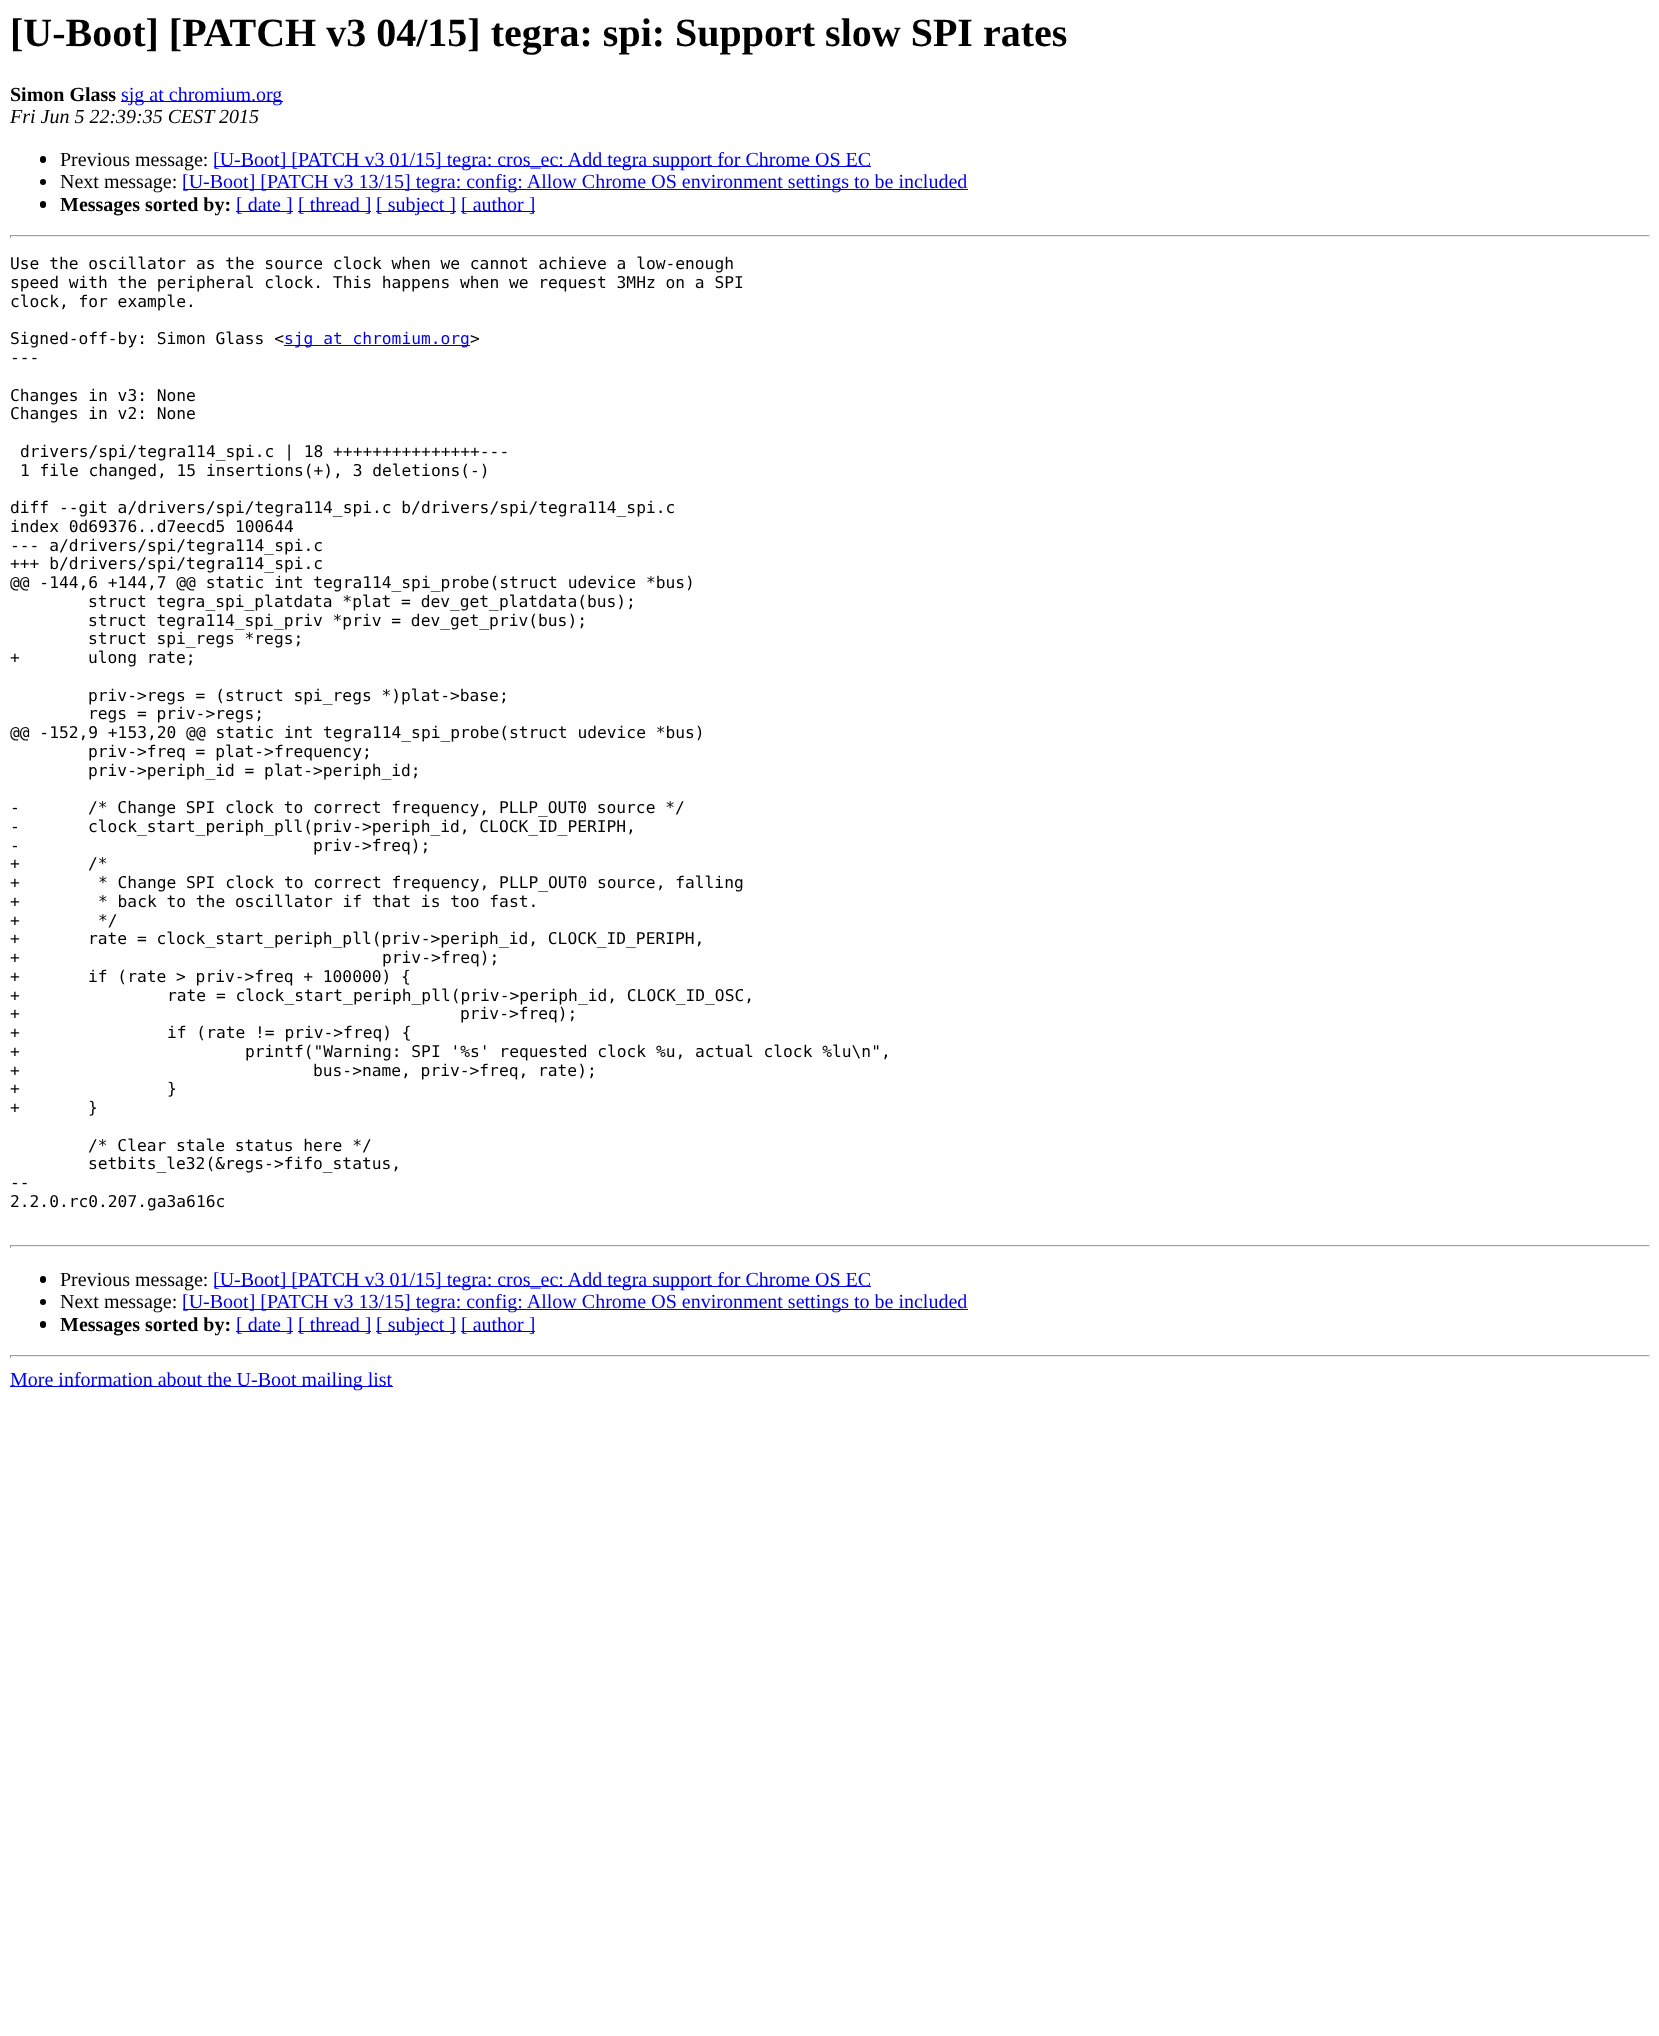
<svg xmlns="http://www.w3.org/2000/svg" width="1659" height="2036">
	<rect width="100%" height="100%" fill="#FFFFFF" />
	<text x="10" y="46" font-family="Liberation Serif" font-size="40" font-weight="700" fill="#000000">[U-Boot] [PATCH v3 04/15] tegra: spi: Support slow SPI rates</text>
	<text x="10" y="101" font-family="Liberation Serif" font-size="20" font-weight="700" fill="#000000">Simon Glass</text>
	<rect x="121" y="101" width="162" height="1" fill="#0000EE" />
	<text x="121" y="101" font-family="Liberation Serif" font-size="20" fill="#0000EE">sjg at chromium.org</text>
	<text x="10" y="123" font-family="Liberation Serif" font-size="20" font-style="italic" fill="#000000">Fri Jun 5 22:39:35 CEST 2015</text>
	<rect x="40" y="156" width="6" height="7" rx="3" fill="#000000" />
	<text x="60" y="166" font-family="Liberation Serif" font-size="20" fill="#000000">Previous message:</text>
	<rect x="214" y="166" width="657" height="1" fill="#0000EE" />
	<text x="213" y="166" font-family="Liberation Serif" font-size="20" fill="#0000EE">[U-Boot] [PATCH v3 01/15] tegra: cros_ec: Add tegra support for Chrome OS EC</text>
	<circle cx="43" cy="182" r="3" fill="#000000" />
	<text x="60" y="188" font-family="Liberation Serif" font-size="20" fill="#000000">Next message:</text>
	<rect x="183" y="189" width="785" height="1" fill="#0000EE" />
	<text x="182" y="188" font-family="Liberation Serif" font-size="20" fill="#0000EE">[U-Boot] [PATCH v3 13/15] tegra: config: Allow Chrome OS environment settings to be included</text>
	<rect x="40" y="201" width="6" height="7" rx="3" fill="#000000" />
	<text x="60" y="211" font-family="Liberation Serif" font-size="20" font-weight="700" fill="#000000">Messages sorted by:</text>
	<rect x="236" y="211" width="57" height="1" fill="#0000EE" />
	<text x="236" y="211" font-family="Liberation Serif" font-size="20" fill="#0000EE">[ date ]</text>
	<rect x="298" y="211" width="73" height="1" fill="#0000EE" />
	<text x="298" y="211" font-family="Liberation Serif" font-size="20" fill="#0000EE">[ thread ]</text>
	<rect x="376" y="211" width="80" height="1" fill="#0000EE" />
	<text x="376" y="211" font-family="Liberation Serif" font-size="20" fill="#0000EE">[ subject ]</text>
	<rect x="461" y="211" width="74" height="1" fill="#0000EE" />
	<text x="461" y="211" font-family="Liberation Serif" font-size="20" fill="#0000EE">[ author ]</text>
	<rect x="10" y="235" width="1640" height="1" fill="#9F9F9F" />
	<rect x="1649" y="235" width="1" height="3" fill="#EEEEEE" />
	<rect x="10" y="236" width="1640" height="1" fill="#EEEEEE" />
	<rect x="10" y="235" width="1" height="3" fill="#9F9F9F" />
	<g font-family="DejaVu Sans Mono" font-size="16.25" fill="#000000">
		<text x="10" y="269">Use the oscillator as the source clock when we cannot achieve a low-enough</text>
		<text x="10" y="288">speed with the peripheral clock. This happens when we request 3MHz on a SPI</text>
		<text x="10" y="307">clock, for example.</text>
		<text x="10" y="344">Signed-off-by: Simon Glass &lt;</text>
	</g>
	<rect x="284" y="345" width="186" height="1" fill="#0000EE" />
	<text x="284" y="344" font-family="DejaVu Sans Mono" font-size="16.25" fill="#0000EE">sjg at chromium.org</text>
	<g font-family="DejaVu Sans Mono" font-size="16.25" fill="#000000">
		<text x="470" y="344">&gt;</text>
		<text x="10" y="363">---</text>
		<text x="10" y="401">Changes in v3: None</text>
		<text x="10" y="419">Changes in v2: None</text>
		<text x="20" y="457">drivers/spi/tegra114_spi.c | 18 +++++++++++++++---</text>
		<text x="20" y="476">1 file changed, 15 insertions(+), 3 deletions(-)</text>
		<text x="10" y="513">diff --git a/drivers/spi/tegra114_spi.c b/drivers/spi/tegra114_spi.c</text>
		<text x="10" y="532">index 0d69376..d7eecd5 100644</text>
		<text x="10" y="551">--- a/drivers/spi/tegra114_spi.c</text>
		<text x="10" y="569">+++ b/drivers/spi/tegra114_spi.c</text>
		<text x="10" y="588">@@ -144,6 +144,7 @@ static int tegra114_spi_probe(struct udevice *bus)</text>
		<text x="88" y="607">struct tegra_spi_platdata *plat = dev_get_platdata(bus);</text>
		<text x="88" y="626">struct tegra114_spi_priv *priv = dev_get_priv(bus);</text>
		<text x="88" y="644">struct spi_regs *regs;</text>
		<text x="10" y="663">+</text>
		<text x="88" y="663">ulong rate;</text>
		<text x="88" y="701">priv-&gt;regs = (struct spi_regs *)plat-&gt;base;</text>
		<text x="88" y="719">regs = priv-&gt;regs;</text>
		<text x="10" y="738">@@ -152,9 +153,20 @@ static int tegra114_spi_probe(struct udevice *bus)</text>
		<text x="88" y="757">priv-&gt;freq = plat-&gt;frequency;</text>
		<text x="88" y="776">priv-&gt;periph_id = plat-&gt;periph_id;</text>
		<text x="10" y="813">-</text>
		<text x="88" y="813">/* Change SPI clock to correct frequency, PLLP_OUT0 source */</text>
		<text x="10" y="832">-</text>
		<text x="88" y="832">clock_start_periph_pll(priv-&gt;periph_id, CLOCK_ID_PERIPH,</text>
		<text x="10" y="851">-</text>
		<text x="313" y="851">priv-&gt;freq);</text>
		<text x="10" y="869">+</text>
		<text x="88" y="869">/*</text>
		<text x="10" y="888">+</text>
		<text x="98" y="888">* Change SPI clock to correct frequency, PLLP_OUT0 source, falling</text>
		<text x="10" y="907">+</text>
		<text x="98" y="907">* back to the oscillator if that is too fast.</text>
		<text x="10" y="926">+</text>
		<text x="98" y="926">*/</text>
		<text x="10" y="944">+</text>
		<text x="88" y="944">rate = clock_start_periph_pll(priv-&gt;periph_id, CLOCK_ID_PERIPH,</text>
		<text x="10" y="963">+</text>
		<text x="382" y="963">priv-&gt;freq);</text>
		<text x="10" y="982">+</text>
		<text x="88" y="982">if (rate &gt; priv-&gt;freq + 100000) {</text>
		<text x="10" y="1001">+</text>
		<text x="167" y="1001">rate = clock_start_periph_pll(priv-&gt;periph_id, CLOCK_ID_OSC,</text>
		<text x="10" y="1019">+</text>
		<text x="460" y="1019">priv-&gt;freq);</text>
		<text x="10" y="1038">+</text>
		<text x="167" y="1038">if (rate != priv-&gt;freq) {</text>
		<text x="10" y="1057">+</text>
		<text x="245" y="1057">printf("Warning: SPI '%s' requested clock %u, actual clock %lu\n",</text>
		<text x="10" y="1076">+</text>
		<text x="313" y="1076">bus-&gt;name, priv-&gt;freq, rate);</text>
		<text x="10" y="1094">+</text>
		<text x="167" y="1094">}</text>
		<text x="10" y="1113">+</text>
		<text x="88" y="1113">}</text>
		<text x="88" y="1151">/* Clear stale status here */</text>
		<text x="88" y="1169">setbits_le32(&amp;regs-&gt;fifo_status,</text>
		<text x="10" y="1188">--</text>
		<text x="10" y="1207">2.2.0.rc0.207.ga3a616c</text>
	</g>
	<rect x="10" y="1245" width="1640" height="1" fill="#9F9F9F" />
	<rect x="1649" y="1245" width="1" height="3" fill="#EEEEEE" />
	<rect x="10" y="1246" width="1640" height="1" fill="#EEEEEE" />
	<rect x="10" y="1245" width="1" height="3" fill="#9F9F9F" />
	<rect x="40" y="1276" width="6" height="7" rx="3" fill="#000000" />
	<text x="60" y="1286" font-family="Liberation Serif" font-size="20" fill="#000000">Previous message:</text>
	<rect x="214" y="1286" width="657" height="1" fill="#0000EE" />
	<text x="213" y="1286" font-family="Liberation Serif" font-size="20" fill="#0000EE">[U-Boot] [PATCH v3 01/15] tegra: cros_ec: Add tegra support for Chrome OS EC</text>
	<circle cx="43" cy="1302" r="3" fill="#000000" />
	<text x="60" y="1308" font-family="Liberation Serif" font-size="20" fill="#000000">Next message:</text>
	<rect x="183" y="1309" width="785" height="1" fill="#0000EE" />
	<text x="182" y="1308" font-family="Liberation Serif" font-size="20" fill="#0000EE">[U-Boot] [PATCH v3 13/15] tegra: config: Allow Chrome OS environment settings to be included</text>
	<rect x="40" y="1321" width="6" height="7" rx="3" fill="#000000" />
	<text x="60" y="1331" font-family="Liberation Serif" font-size="20" font-weight="700" fill="#000000">Messages sorted by:</text>
	<rect x="236" y="1331" width="57" height="1" fill="#0000EE" />
	<text x="236" y="1331" font-family="Liberation Serif" font-size="20" fill="#0000EE">[ date ]</text>
	<rect x="298" y="1331" width="73" height="1" fill="#0000EE" />
	<text x="298" y="1331" font-family="Liberation Serif" font-size="20" fill="#0000EE">[ thread ]</text>
	<rect x="376" y="1331" width="80" height="1" fill="#0000EE" />
	<text x="376" y="1331" font-family="Liberation Serif" font-size="20" fill="#0000EE">[ subject ]</text>
	<rect x="461" y="1331" width="74" height="1" fill="#0000EE" />
	<text x="461" y="1331" font-family="Liberation Serif" font-size="20" fill="#0000EE">[ author ]</text>
	<rect x="10" y="1355" width="1640" height="1" fill="#9F9F9F" />
	<rect x="1649" y="1355" width="1" height="3" fill="#EEEEEE" />
	<rect x="10" y="1356" width="1640" height="1" fill="#EEEEEE" />
	<rect x="10" y="1355" width="1" height="3" fill="#9F9F9F" />
	<rect x="10" y="1386" width="383" height="1" fill="#0000EE" />
	<text x="10" y="1386" font-family="Liberation Serif" font-size="20" fill="#0000EE">More information about the U-Boot mailing list</text>
</svg>
